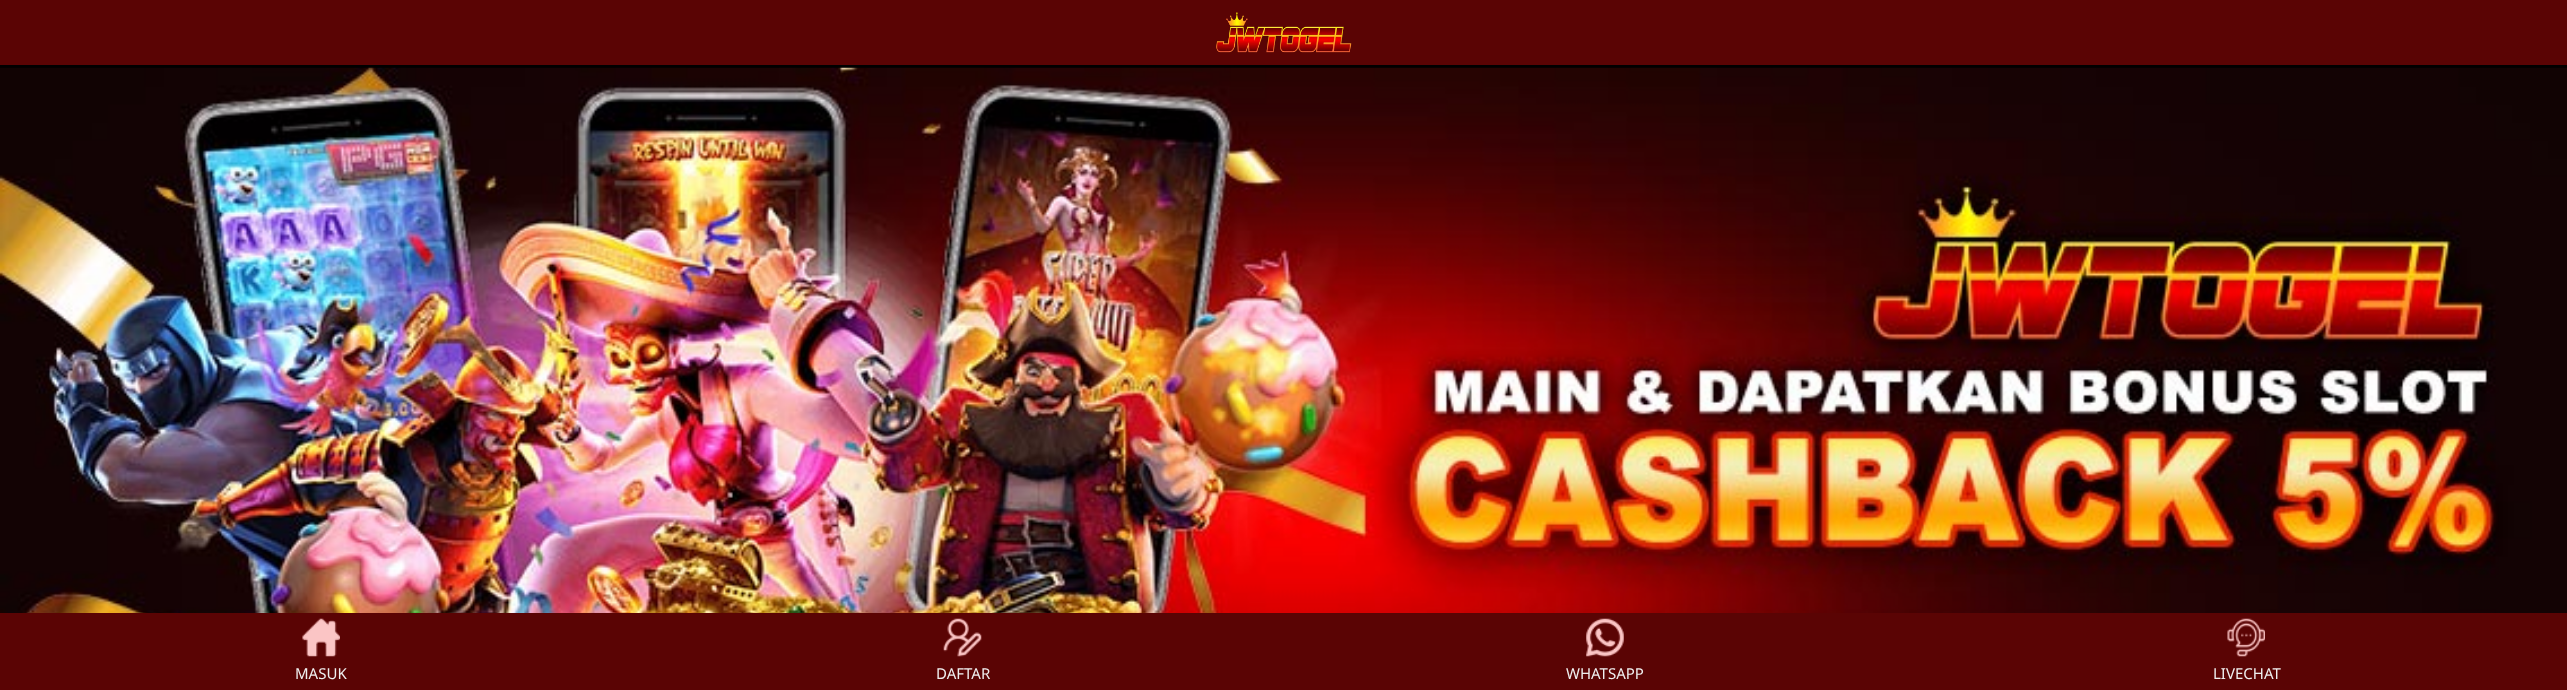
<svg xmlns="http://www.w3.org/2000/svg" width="2567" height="690">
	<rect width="100%" height="100%" fill="#000000" />
	<rect x="0" y="0" width="2567" height="65" fill="#5A0404" />
	<image x="1216" y="12" width="136" height="41" href="assets/img1.png" />
	<image x="0" y="67" width="2567" height="546" href="assets/img2.png" />
	<rect x="0" y="613" width="2567" height="77" fill="#5A0404" />
	<image x="302" y="618" width="38" height="39" href="assets/img3.png" />
	<text x="295" y="679" font-family="Noto Sans" font-size="15" fill="#EFEFEF">MASUK</text>
	<image x="943" y="618" width="39" height="39" href="assets/img4.png" />
	<text x="936" y="679" font-family="Noto Sans" font-size="15" fill="#EFEFEF">DAFTAR</text>
	<image x="1586" y="618" width="38" height="39" href="assets/img5.png" />
	<text x="1566" y="679" font-family="Noto Sans" font-size="15" fill="#EFEFEF">WHATSAPP</text>
	<image x="2227" y="618" width="38" height="39" href="assets/img6.png" />
	<text x="2213" y="679" font-family="Noto Sans" font-size="15" fill="#EFEFEF">LIVECHAT</text>
</svg>
